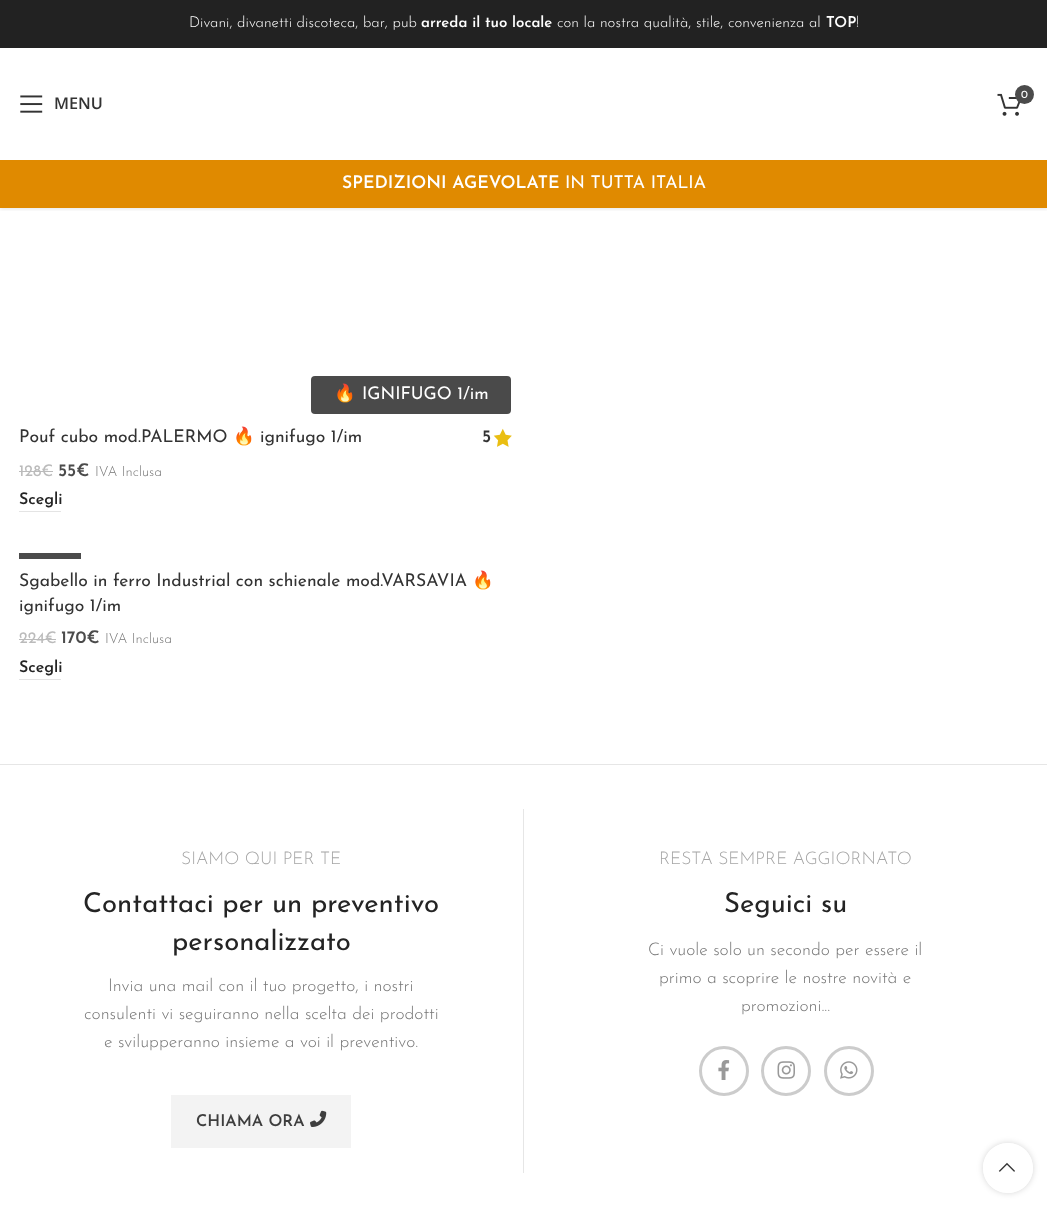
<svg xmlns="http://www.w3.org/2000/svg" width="1047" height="1207">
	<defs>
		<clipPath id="clip1"><rect x="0" y="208" width="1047" height="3" /></clipPath>
		<clipPath id="clip2"><path d="M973 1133H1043V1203H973ZM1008 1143C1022 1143 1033 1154 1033 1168C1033 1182 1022 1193 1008 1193C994 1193 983 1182 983 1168C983 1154 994 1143 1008 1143Z" clip-rule="evenodd" /></clipPath>
	</defs>
	<rect width="100%" height="100%" fill="#FFFFFF" />
	<g clip-path="url(#clip1)">
		<rect x="0" y="1" width="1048" height="208" fill="#000000" fill-opacity="0.1" filter="blur(2px)" />
	</g>
	<rect x="0" y="0" width="1047" height="48" fill="#222222" />
	<text x="189" y="27" font-family="Josefin Sans" font-size="15" font-weight="300" fill="#FFFFFF">Divani, divanetti discoteca, bar, pub</text>
	<text x="421" y="27" font-family="Josefin Sans" font-size="15" font-weight="600" fill="#FFFFFF">arreda il tuo locale</text>
	<text x="557" y="27" font-family="Josefin Sans" font-size="15" font-weight="300" fill="#FFFFFF">con la nostra qualità, stile, convenienza al</text>
	<text x="826" y="27" font-family="Josefin Sans" font-size="15" font-weight="600" fill="#FFFFFF">TOP</text>
	<text x="856" y="27" font-family="Josefin Sans" font-size="15" font-weight="300" fill="#FFFFFF">!</text>
	<image x="997" y="93" width="24" height="23" href="assets/img1.png" />
	<circle cx="1024.5" cy="94.5" r="9.5" fill="#4B4B4B" />
	<text x="1021" y="98" font-family="Josefin Sans" font-size="11" fill="#FFFFFF">0</text>
	<image x="20" y="95" width="23" height="18" href="assets/img2.png" />
	<text x="54" y="109" font-family="Open Sans" font-size="16.25" font-weight="600" fill="#333333">MENU</text>
	<rect x="0" y="160" width="1047" height="48" fill="#E08A00" />
	<text x="342" y="188" font-family="Josefin Sans" font-size="17.5" font-weight="600" fill="#FFFFFF">SPEDIZIONI AGEVOLATE</text>
	<text x="565" y="188" font-family="Josefin Sans" font-size="17.5" fill="#FFFFFF">IN TUTTA ITALIA</text>
	<rect x="311" y="376" width="200" height="38" rx="4" fill="#4A4A4A" />
	<text x="334" y="399" font-family="Noto Color Emoji" font-size="17.5" fill="#FFFFFF">🔥</text>
	<text x="362" y="399" font-family="Josefin Sans" font-size="17.5" fill="#FFFFFF">IGNIFUGO 1/im</text>
	<text x="19" y="442" font-family="Josefin Sans" font-size="17.5" fill="#333333">Pouf cubo mod.PALERMO</text>
	<text x="233" y="442" font-family="Noto Color Emoji" font-size="17.5" fill="#333333">🔥</text>
	<text x="260" y="442" font-family="Josefin Sans" font-size="17.5" fill="#333333">ignifugo 1/im</text>
	<text x="482" y="442" font-family="Josefin Sans" font-size="17.5" font-weight="600" fill="#333333">5</text>
	<image x="493" y="428" width="19" height="19" href="assets/img3.png" />
	<text x="19" y="476" font-family="Josefin Sans" font-size="16" fill="#BBBBBB">128€</text>
	<rect x="19" y="471" width="34" height="1" fill="#BBBBBB" />
	<text x="58" y="476" font-family="Josefin Sans" font-size="17.5" font-weight="600" fill="#4B4B4B">55€</text>
	<text x="95" y="476" font-family="Josefin Sans" font-size="14" font-weight="300" fill="#767676">IVA Inclusa</text>
	<rect x="19" y="511" width="42" height="1" fill="#E4E4E4" />
	<text x="19" y="504" font-family="Josefin Sans" font-size="16" font-weight="600" fill="#242424">Scegli</text>
	<rect x="19" y="553" width="62" height="6" fill="#4B4B4B" />
	<text x="19" y="586" font-family="Josefin Sans" font-size="17.5" fill="#333333">Sgabello in ferro Industrial con schienale mod.VARSAVIA</text>
	<text x="472" y="586" font-family="Noto Color Emoji" font-size="17.5" fill="#333333">🔥</text>
	<text x="19" y="611" font-family="Josefin Sans" font-size="17.5" fill="#333333">ignifugo 1/im</text>
	<text x="19" y="643" font-family="Josefin Sans" font-size="16" fill="#BBBBBB">224€</text>
	<rect x="19" y="639" width="37" height="1" fill="#BBBBBB" />
	<text x="61" y="643" font-family="Josefin Sans" font-size="17.5" font-weight="600" fill="#4B4B4B">170€</text>
	<text x="105" y="643" font-family="Josefin Sans" font-size="14" font-weight="300" fill="#767676">IVA Inclusa</text>
	<rect x="19" y="679" width="42" height="1" fill="#E4E4E4" />
	<text x="19" y="672" font-family="Josefin Sans" font-size="16" font-weight="600" fill="#242424">Scegli</text>
	<rect x="0" y="764" width="1047" height="1" fill="#E6E6E6" />
	<rect x="523" y="809" width="1" height="364" fill="#E6E6E6" />
	<text x="181" y="864" font-family="Josefin Sans" font-size="17.5" font-weight="300" fill="#A5A5A5">SIAMO QUI PER TE</text>
	<g font-family="Josefin Sans" font-size="27.5" fill="#242424">
		<text x="83" y="912">Contattaci per un preventivo</text>
		<text x="172" y="950">personalizzato</text>
	</g>
	<g font-family="Josefin Sans" font-size="17.5" font-weight="300" fill="#767676">
		<text x="108" y="991">Invia una mail con il tuo progetto, i nostri</text>
		<text x="84" y="1019">consulenti vi seguiranno nella scelta dei prodotti</text>
		<text x="104" y="1047">e svilupperanno insieme a voi il preventivo.</text>
	</g>
	<rect x="171" y="1095" width="180" height="53" fill="#F3F3F3" />
	<text x="196" y="1126" font-family="Josefin Sans" font-size="16.25" font-weight="600" fill="#3E3E3E">CHIAMA ORA</text>
	<image x="310" y="1110" width="17" height="17" href="assets/img4.png" />
	<text x="659" y="864" font-family="Josefin Sans" font-size="17.5" font-weight="300" fill="#A5A5A5">RESTA SEMPRE AGGIORNATO</text>
	<text x="724" y="912" font-family="Josefin Sans" font-size="27.5" fill="#242424">Seguici su</text>
	<g font-family="Josefin Sans" font-size="17.5" font-weight="300" fill="#767676">
		<text x="648" y="955">Ci vuole solo un secondo per essere il</text>
		<text x="659" y="983">primo a scoprire le nostre novità e</text>
		<text x="741" y="1011">promozioni...</text>
	</g>
	<circle cx="724" cy="1071" r="23.5" fill="none" stroke="#CCCCCC" stroke-width="3" />
	<image x="718" y="1060" width="12" height="20" href="assets/img5.png" />
	<circle cx="786" cy="1071" r="23.5" fill="none" stroke="#CCCCCC" stroke-width="3" />
	<image x="777" y="1061" width="18" height="18" href="assets/img6.png" />
	<circle cx="849" cy="1071" r="23.5" fill="none" stroke="#CCCCCC" stroke-width="3" />
	<image x="840" y="1061" width="18" height="18" href="assets/img7.png" />
	<g clip-path="url(#clip2)">
		<rect x="983" y="1143" width="50" height="50" rx="25" fill="#000000" fill-opacity="0.17" filter="blur(3px)" />
	</g>
	<circle cx="1008" cy="1168" r="25" fill="#FFFFFF" fill-opacity="0.9" />
	<image x="998" y="1162" width="17" height="10" href="assets/img8.png" />
</svg>
